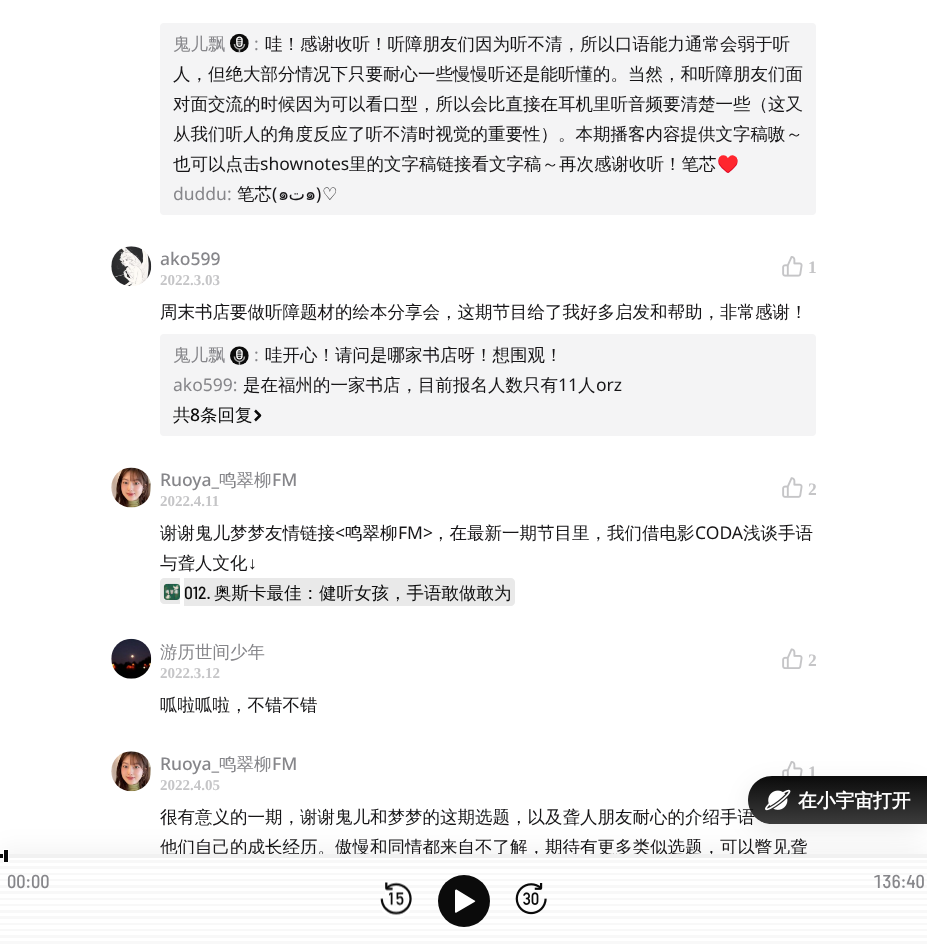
<svg xmlns="http://www.w3.org/2000/svg" width="927" height="947">
	<defs>
		<clipPath id="clip1"><path d="M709 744H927V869H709ZM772 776H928V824H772C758.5 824 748 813.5 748 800C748 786.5 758.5 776 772 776Z" clip-rule="evenodd" /></clipPath>
		<linearGradient id="g1" gradientUnits="userSpaceOnUse" x1="838" y1="776" x2="838" y2="824"><stop offset="0" stop-color="#0B0B0B" /><stop offset="1" stop-color="#0B0B0B" stop-opacity="0.8" /></linearGradient>
	</defs>
	<rect width="100%" height="100%" fill="#FFFFFF" />
	<rect x="160" y="23" width="656" height="192" rx="4" fill="#F4F4F5" />
	<text x="173" y="50" font-family="WenQuanYi Zen Hei" font-size="17.5" font-weight="500" fill="#86868A">鬼儿飘</text>
	<image x="230" y="33" width="19" height="20" href="assets/img1.png" />
	<text x="254" y="50" font-family="Noto Sans" font-size="17.5" fill="#86868A">:</text>
	<g font-family="WenQuanYi Zen Hei" font-size="17.5" font-weight="500" fill="#161517">
		<text x="265" y="50">哇！感谢收听！听障朋友们因为听不清，所以口语能力通常会弱于听</text>
		<text x="173" y="80">人，但绝大部分情况下只要耐心一些慢慢听还是能听懂的。当然，和听障朋友们面</text>
		<text x="173" y="110">对面交流的时候因为可以看口型，所以会比直接在耳机里听音频要清楚一些（这又</text>
		<text x="173" y="140">从我们听人的角度反应了听不清时视觉的重要性）。本期播客内容提供文字稿嗷～</text>
		<text x="173" y="170">也可以点击</text>
	</g>
	<text x="260" y="170" font-family="Noto Sans" font-size="17.5" fill="#161517">shownotes</text>
	<text x="349" y="170" font-family="WenQuanYi Zen Hei" font-size="17.5" font-weight="500" fill="#161517">里的文字稿链接看文字稿～再次感谢收听！笔芯</text>
	<text x="717" y="170" font-family="Noto Color Emoji" font-size="17.5" fill="#161517">♥️</text>
	<text x="173" y="200" font-family="Noto Sans" font-size="17.5" fill="#86868A">duddu:</text>
	<text x="237" y="200" font-family="WenQuanYi Zen Hei" font-size="17.5" font-weight="500" fill="#161517">笔芯</text>
	<text x="272" y="200" font-family="Noto Sans" font-size="17.5" fill="#161517">(</text>
	<text x="278" y="200" font-family="Loma" font-size="17.5" fill="#161517">๑</text>
	<text x="305" y="200" font-family="DejaVu Sans" font-size="17.5" direction="rtl" fill="#161517">ت</text>
	<text x="305" y="200" font-family="Loma" font-size="17.5" fill="#161517">๑</text>
	<text x="316" y="200" font-family="Noto Sans" font-size="17.5" fill="#161517">)</text>
	<text x="322" y="200" font-family="DejaVu Sans" font-size="17.5" fill="#161517">♡</text>
	<image x="111" y="246" width="41" height="41" href="assets/img2.png" />
	<text x="160" y="265" font-family="Noto Sans" font-size="17.5" font-weight="500" fill="#86868A">ako599</text>
	<text x="160" y="285" font-family="Liberation Serif" font-size="15" font-weight="700" fill="#C5C5C7">2022.3.03</text>
	<image x="782" y="256" width="21" height="21" href="assets/img3.png" />
	<text x="808" y="273" font-family="Liberation Serif" font-size="17.5" font-weight="700" fill="#C5C5C7">1</text>
	<text x="160" y="318" font-family="WenQuanYi Zen Hei" font-size="17.5" font-weight="500" fill="#161517">周末书店要做听障题材的绘本分享会，这期节目给了我好多启发和帮助，非常感谢！</text>
	<rect x="160" y="334" width="656" height="102" rx="4" fill="#F4F4F5" />
	<text x="173" y="361" font-family="WenQuanYi Zen Hei" font-size="17.5" font-weight="500" fill="#86868A">鬼儿飘</text>
	<image x="230" y="346" width="19" height="19" href="assets/img4.png" />
	<text x="254" y="361" font-family="Noto Sans" font-size="17.5" fill="#86868A">:</text>
	<text x="265" y="361" font-family="WenQuanYi Zen Hei" font-size="17.5" font-weight="500" fill="#161517">哇开心！请问是哪家书店呀！想围观！</text>
	<text x="173" y="391" font-family="Noto Sans" font-size="17.5" fill="#86868A">ako599:</text>
	<text x="243" y="391" font-family="WenQuanYi Zen Hei" font-size="17.5" font-weight="500" fill="#161517">是在福州的一家书店，目前报名人数只有</text>
	<text x="558" y="391" font-family="Noto Sans" font-size="17.5" fill="#161517">11</text>
	<text x="578" y="391" font-family="WenQuanYi Zen Hei" font-size="17.5" font-weight="500" fill="#161517">人</text>
	<text x="596" y="391" font-family="Noto Sans" font-size="17.5" fill="#161517">orz</text>
	<text x="173" y="421" font-family="WenQuanYi Zen Hei" font-size="17.5" font-weight="500" fill="#0B0B0B">共</text>
	<text x="190" y="421" font-family="Noto Sans" font-size="17.5" font-weight="500" fill="#0B0B0B">8</text>
	<text x="200" y="421" font-family="WenQuanYi Zen Hei" font-size="17.5" font-weight="500" fill="#0B0B0B">条回复</text>
	<path d="M255 410.5L260 415.5L255 420.5" fill="none" stroke="#0B0B0B" stroke-width="2.5" stroke-linejoin="round" />
	<image x="111" y="467" width="40" height="41" href="assets/img5.png" />
	<text x="160" y="486" font-family="Noto Sans" font-size="17.5" font-weight="500" fill="#86868A">Ruoya_</text>
	<text x="219" y="486" font-family="WenQuanYi Zen Hei" font-size="17.5" font-weight="500" fill="#86868A">鸣翠柳</text>
	<text x="272" y="486" font-family="Noto Sans" font-size="17.5" font-weight="500" fill="#86868A">FM</text>
	<text x="160" y="506" font-family="Liberation Serif" font-size="15" font-weight="700" fill="#C5C5C7">2022.4.11</text>
	<image x="782" y="477" width="21" height="21" href="assets/img6.png" />
	<text x="808" y="495" font-family="Liberation Serif" font-size="17.5" font-weight="700" fill="#C5C5C7">2</text>
	<text x="160" y="539" font-family="WenQuanYi Zen Hei" font-size="17.5" font-weight="500" fill="#161517">谢谢鬼儿梦梦友情链接</text>
	<text x="335" y="539" font-family="Noto Sans" font-size="17.5" fill="#161517">&lt;</text>
	<text x="345" y="539" font-family="WenQuanYi Zen Hei" font-size="17.5" font-weight="500" fill="#161517">鸣翠柳</text>
	<text x="398" y="539" font-family="Noto Sans" font-size="17.5" fill="#161517">FM&gt;</text>
	<text x="432" y="539" font-family="WenQuanYi Zen Hei" font-size="17.5" font-weight="500" fill="#161517">，在最新一期节目里，我们借电影</text>
	<text x="695" y="539" font-family="Noto Sans" font-size="17.5" fill="#161517">CODA</text>
	<g font-family="WenQuanYi Zen Hei" font-size="17.5" font-weight="500" fill="#161517">
		<text x="743" y="539">浅谈手语</text>
		<text x="160" y="569">与聋人文化</text>
	</g>
	<text x="248" y="569" font-family="Liberation Serif" font-size="17.5" fill="#161517">↓</text>
	<path d="M164 578H180V604H164C162 604 160 602 160 600V582C160 580 162 578 164 578Z" fill="#E9E9E9" />
	<path d="M184 578H511C513 578 515 580 515 582V602C515 604 513 606 511 606H184Z" fill="#E9E9E9" />
	<image x="163" y="583" width="17" height="17" href="assets/img7.png" />
	<text x="184" y="599" font-family="Barlow Semi Condensed" font-size="17.5" font-weight="500" fill="#0B0B0B">012.</text>
	<text x="214" y="599" font-family="WenQuanYi Zen Hei" font-size="17.5" font-weight="500" fill="#0B0B0B">奥斯卡最佳：健听女孩，手语敢做敢为</text>
	<image x="111" y="638" width="41" height="41" href="assets/img8.png" />
	<text x="160" y="658" font-family="WenQuanYi Zen Hei" font-size="17.5" font-weight="500" fill="#86868A">游历世间少年</text>
	<text x="160" y="678" font-family="Liberation Serif" font-size="15" font-weight="700" fill="#C5C5C7">2022.3.12</text>
	<image x="782" y="648" width="21" height="21" href="assets/img9.png" />
	<text x="808" y="666" font-family="Liberation Serif" font-size="17.5" font-weight="700" fill="#C5C5C7">2</text>
	<text x="160" y="711" font-family="WenQuanYi Zen Hei" font-size="17.5" font-weight="500" fill="#161517">呱啦呱啦，不错不错</text>
	<image x="111" y="751" width="40" height="41" href="assets/img10.png" />
	<text x="160" y="770" font-family="Noto Sans" font-size="17.5" font-weight="500" fill="#86868A">Ruoya_</text>
	<text x="219" y="770" font-family="WenQuanYi Zen Hei" font-size="17.5" font-weight="500" fill="#86868A">鸣翠柳</text>
	<text x="272" y="770" font-family="Noto Sans" font-size="17.5" font-weight="500" fill="#86868A">FM</text>
	<text x="160" y="790" font-family="Liberation Serif" font-size="15" font-weight="700" fill="#C5C5C7">2022.4.05</text>
	<image x="782" y="761" width="21" height="21" href="assets/img3.png" />
	<text x="808" y="778" font-family="Liberation Serif" font-size="17.5" font-weight="700" fill="#C5C5C7">1</text>
	<g font-family="WenQuanYi Zen Hei" font-size="17.5" font-weight="500" fill="#161517">
		<text x="160" y="823">很有意义的一期，谢谢鬼儿和梦梦的这期选题，以及聋人朋友耐心的介绍手语</text>
		<text x="160" y="853">他们自己的成长经历。傲慢和同情都来自不了解，期待有更多类似选题，可以瞥见聋</text>
	</g>
	<g clip-path="url(#clip1)">
		<rect x="748" y="783" width="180" height="47" rx="23.5" fill="#000000" fill-opacity="0.08" filter="blur(12.5px)" />
	</g>
	<path d="M772 776H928V824H772C758.5 824 748 813.5 748 800C748 786.5 758.5 776 772 776Z" fill="url(#g1)" />
	<image x="765" y="789" width="26" height="22" href="assets/img11.png" />
	<text x="798" y="807" font-family="WenQuanYi Zen Hei" font-size="18.75" font-weight="700" fill="#FFFFFF">在小宇宙打开</text>
	<rect x="0" y="849" width="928" height="94" fill="#000000" fill-opacity="0.05" filter="blur(12.5px)" />
	<rect x="0" y="944" width="927" height="3" fill="#FFFFFF" />
	<image x="0" y="858" width="927" height="86" href="assets/img12.png" />
	<rect x="0" y="854" width="3" height="4" fill="#0B0B0B" />
	<rect x="3.5" y="849.5" width="5" height="13" fill="#0B0B0B" stroke="#FFFFFF" />
	<rect x="9" y="854" width="918" height="4" fill="#F1F1F1" />
	<g font-family="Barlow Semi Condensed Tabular" font-size="18.75" font-weight="500" fill="#86868A">
		<text x="7" y="888">00:00</text>
		<text x="873" y="888">136:40</text>
	</g>
	<image x="380" y="882" width="32" height="36" href="assets/img13.png" />
	<circle cx="464" cy="901" r="26" fill="#0B0B0B" />
	<path d="M474.5 900.5C475.5 900.5 475.5 901.5 474.5 902L456.5 912.5C456 913 455 912.5 455 912V890.5C455 890 456 889.5 456.5 889.5Z" fill="#FFFFFF" />
	<image x="515" y="883" width="32" height="32" href="assets/img14.png" />
</svg>
